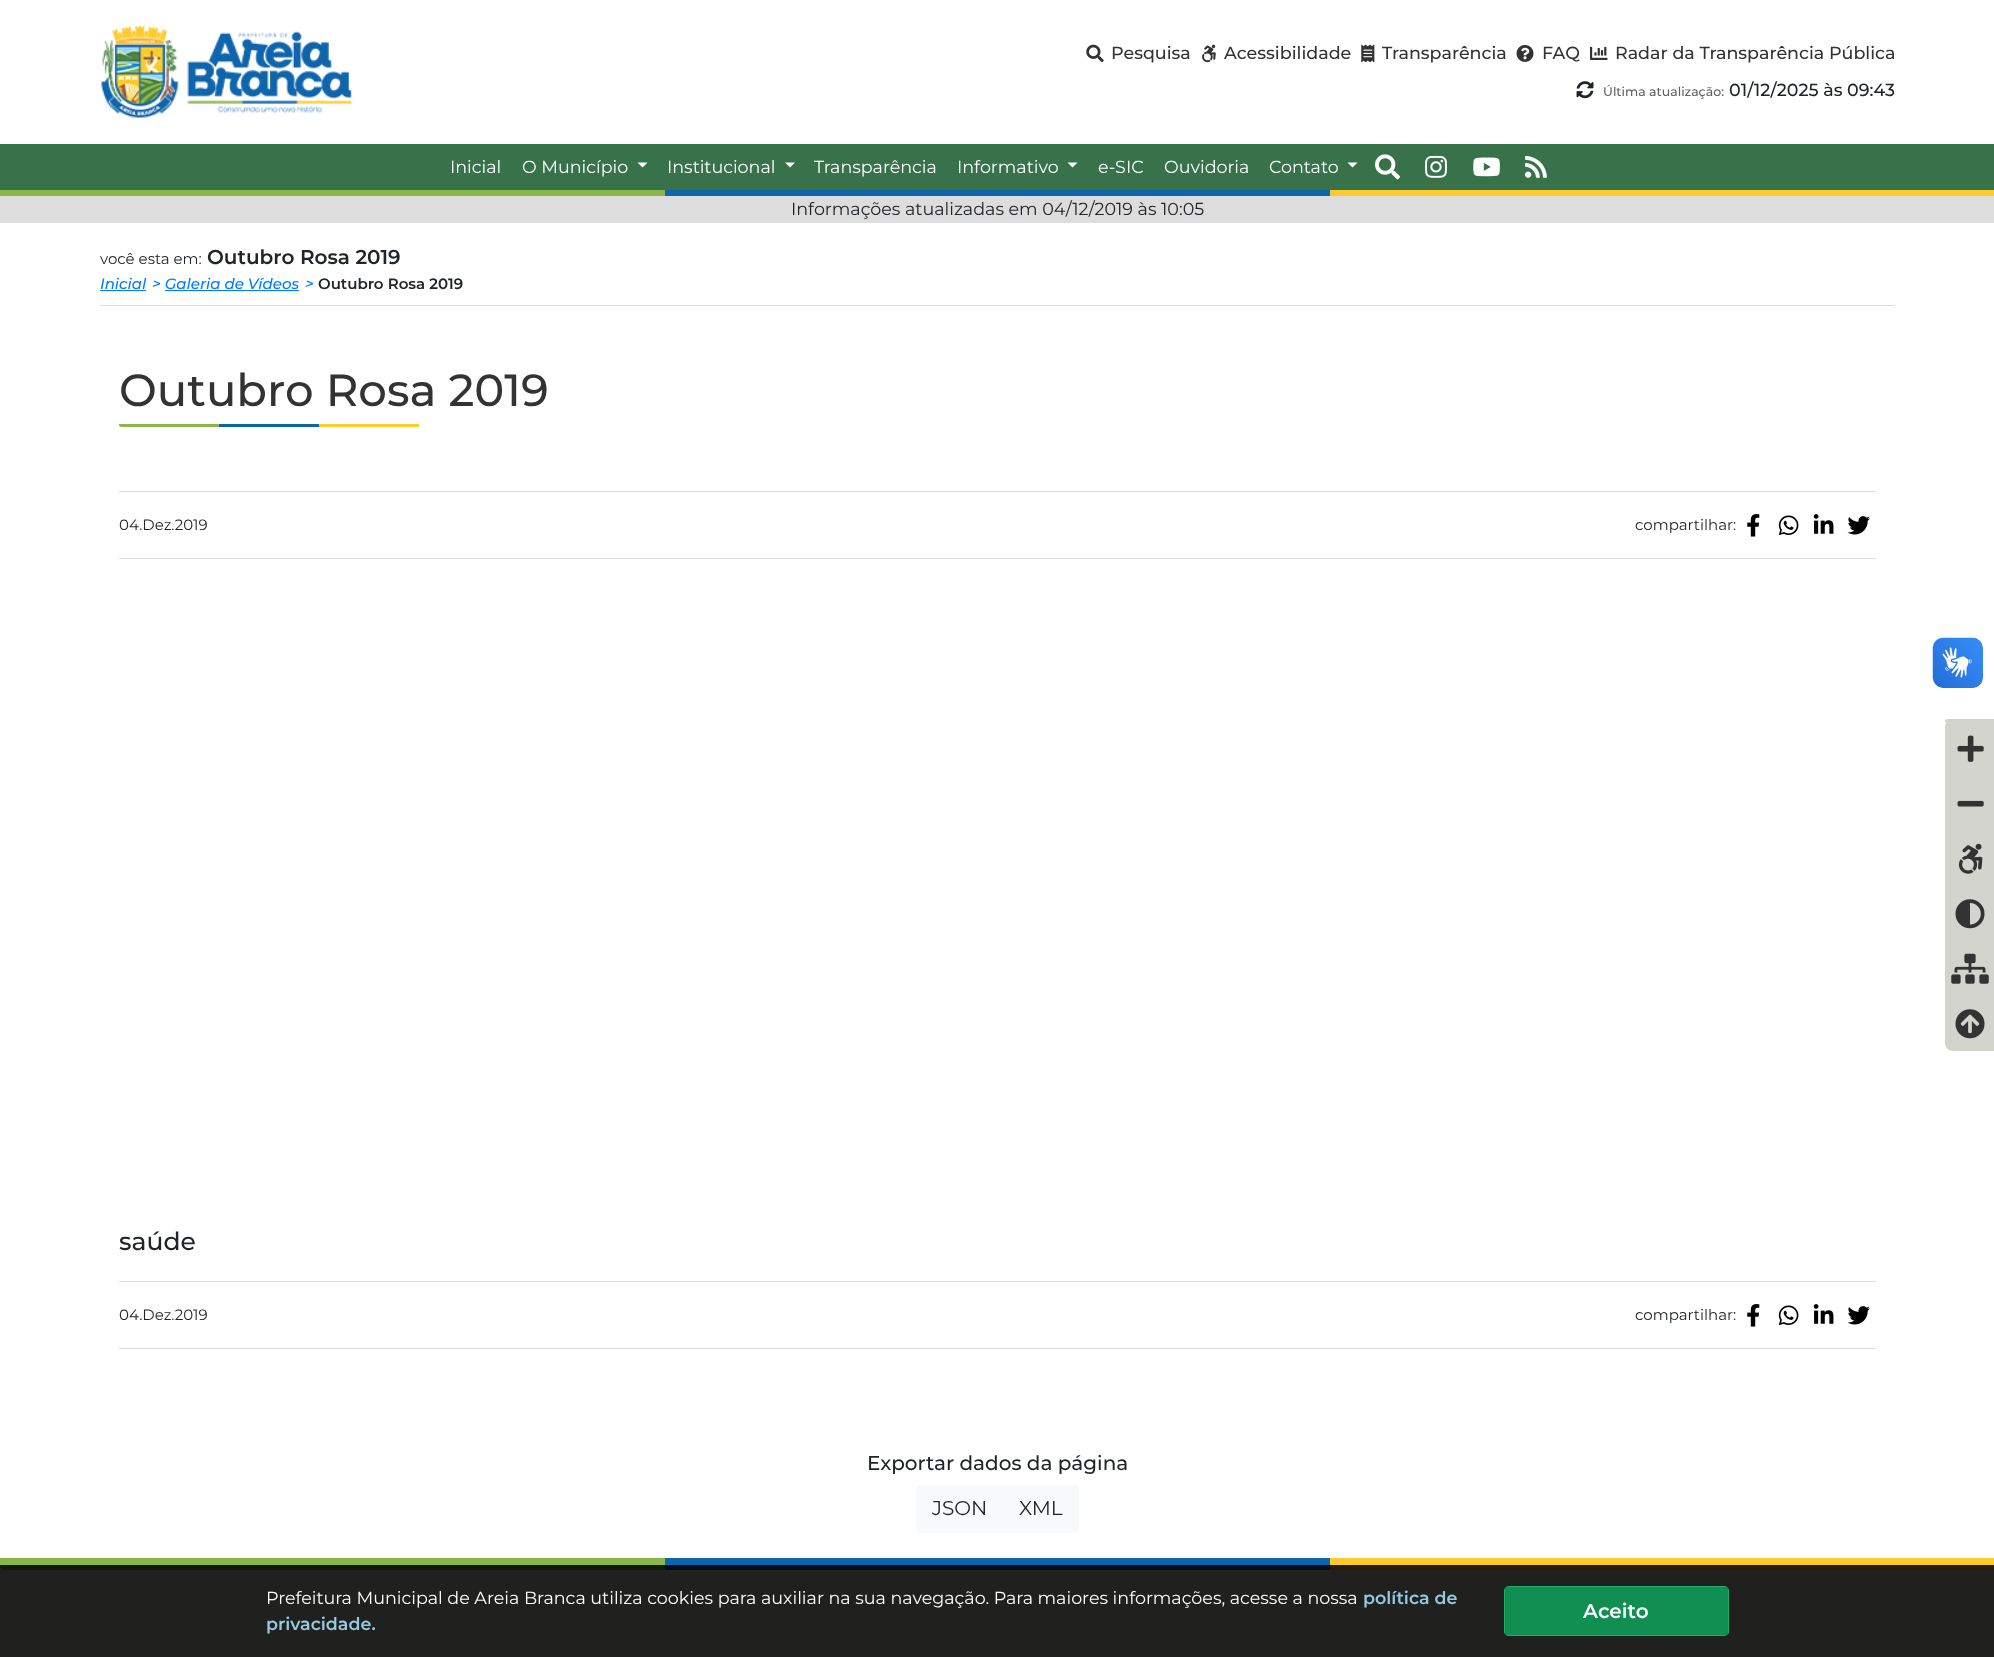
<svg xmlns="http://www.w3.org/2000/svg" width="1994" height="1657">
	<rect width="100%" height="100%" fill="#FFFFFF" />
	<image x="101" y="26" width="251" height="92" href="assets/img1.png" />
	<image x="1086" y="44" width="18" height="19" href="assets/img2.png" />
	<text x="1111" y="59" font-family="Montserrat" font-size="17.5" font-weight="500" fill="#333333">Pesquisa</text>
	<image x="1202" y="44" width="14" height="19" href="assets/img3.png" />
	<text x="1224" y="59" font-family="Montserrat" font-size="17.5" font-weight="500" fill="#333333">Acessibilidade</text>
	<image x="1361" y="44" width="14" height="19" href="assets/img4.png" />
	<text x="1382" y="59" font-family="Montserrat" font-size="17.5" font-weight="500" fill="#333333">Transparência</text>
	<image x="1516" y="45" width="18" height="17" href="assets/img5.png" />
	<text x="1542" y="59" font-family="Montserrat" font-size="17.5" font-weight="500" fill="#333333">FAQ</text>
	<image x="1590" y="46" width="18" height="14" href="assets/img6.png" />
	<text x="1615" y="59" font-family="Montserrat" font-size="17.5" font-weight="500" fill="#333333">Radar da Transparência Pública</text>
	<image x="1576" y="81" width="18" height="18" href="assets/img7.png" />
	<text x="1603" y="96" font-family="Montserrat" font-size="12.5" font-weight="500" fill="#636363">Última atualização:</text>
	<text x="1729" y="96" font-family="Montserrat" font-size="17.5" font-weight="500" fill="#212529">01/12/2025 às 09:43</text>
	<rect x="0" y="144" width="1994" height="46" fill="#37724A" />
	<g font-family="Montserrat" font-size="17.5" fill="#FFFFFF">
		<text x="450" y="173">Inicial</text>
		<text x="522" y="173">O Município</text>
	</g>
	<path d="M637.5 162.5H647.5L642.5 167.5Z" fill="#FFFFFF" />
	<text x="667" y="173" font-family="Montserrat" font-size="17.5" fill="#FFFFFF">Institucional</text>
	<path d="M785 162.5H795L790 167.5Z" fill="#FFFFFF" />
	<g font-family="Montserrat" font-size="17.5" fill="#FFFFFF">
		<text x="814" y="173">Transparência</text>
		<text x="957" y="173">Informativo</text>
	</g>
	<path d="M1067.5 162.5H1077.5L1072.5 167.5Z" fill="#FFFFFF" />
	<g font-family="Montserrat" font-size="17.5" fill="#FFFFFF">
		<text x="1098" y="173">e-SIC</text>
		<text x="1164" y="173">Ouvidoria</text>
		<text x="1269" y="173">Contato</text>
	</g>
	<path d="M1347.5 162.5H1357.5L1352.5 167.5Z" fill="#FFFFFF" />
	<image x="1375" y="154" width="25" height="26" href="assets/img8.png" />
	<image x="1425" y="155" width="22" height="23" href="assets/img9.png" />
	<image x="1473" y="157" width="27" height="20" href="assets/img10.png" />
	<image x="1525" y="156" width="22" height="22" href="assets/img11.png" />
	<rect x="0" y="190" width="665" height="6" fill="#8BB64B" />
	<rect x="665" y="190" width="665" height="6" fill="#0F65AB" />
	<rect x="1330" y="190" width="664" height="6" fill="#FECB2D" />
	<rect x="0" y="196" width="1994" height="27" fill="#DDDDDD" />
	<text x="791" y="215" font-family="Montserrat" font-size="17.5" fill="#212529">Informações atualizadas em 04/12/2019 às 10:05</text>
	<rect x="100" y="305" width="1795" height="1" fill="#DDDDDD" />
	<text x="100" y="264" font-family="Montserrat" font-size="15" fill="#212529">você esta em:</text>
	<text x="207" y="264" font-family="Montserrat" font-size="20" font-weight="600" fill="#212529">Outubro Rosa 2019</text>
	<text x="100" y="289" font-family="Montserrat" font-size="15" font-weight="500" font-style="italic" fill="#007BFF">Inicial</text>
	<rect x="100" y="290" width="46" height="1" fill="#007BFF" />
	<g font-family="Montserrat" font-size="15" font-weight="500" font-style="italic" fill="#007BFF">
		<text x="152" y="289">&gt; Galeria de Vídeos</text>
		<text x="305" y="289">&gt;</text>
	</g>
	<rect x="165" y="290" width="134" height="1" fill="#007BFF" />
	<text x="318" y="289" font-family="Montserrat" font-size="15" font-weight="600" fill="#212529">Outubro Rosa 2019</text>
	<text x="119" y="406" font-family="Montserrat" font-size="45" font-weight="500" fill="#333333">Outubro Rosa 2019</text>
	<path d="M119 424H219V427H121.5C120 427 119 426 119 424.5Z" fill="#8BB64B" />
	<rect x="219" y="424" width="100" height="3" fill="#0F65AB" />
	<rect x="319" y="424" width="100" height="3" fill="#FECB2D" />
	<rect x="119" y="491" width="1757" height="1" fill="#DDDDDD" />
	<rect x="119" y="558" width="1757" height="1" fill="#DDDDDD" />
	<g font-family="Montserrat" font-size="15" fill="#212529">
		<text x="119" y="530">04.Dez.2019</text>
		<text x="1635" y="530">compartilhar:</text>
	</g>
	<image x="1747" y="514" width="13" height="23" href="assets/img12.png" />
	<image x="1778" y="515" width="21" height="21" href="assets/img13.png" />
	<image x="1813" y="514" width="21" height="20" href="assets/img14.png" />
	<image x="1847" y="516" width="23" height="19" href="assets/img15.png" />
	<text x="119" y="1250" font-family="Montserrat" font-size="25" font-weight="500" fill="#212529">saúde</text>
	<rect x="119" y="1281" width="1757" height="1" fill="#DDDDDD" />
	<rect x="119" y="1348" width="1757" height="1" fill="#DDDDDD" />
	<g font-family="Montserrat" font-size="15" fill="#212529">
		<text x="119" y="1320">04.Dez.2019</text>
		<text x="1635" y="1320">compartilhar:</text>
	</g>
	<image x="1747" y="1304" width="13" height="23" href="assets/img12.png" />
	<image x="1778" y="1305" width="21" height="21" href="assets/img13.png" />
	<image x="1813" y="1304" width="21" height="20" href="assets/img14.png" />
	<image x="1847" y="1306" width="23" height="19" href="assets/img15.png" />
	<image x="1932" y="637" width="51" height="51" href="assets/img16.png" />
	<image x="1933" y="638" width="50" height="50" href="assets/img17.png" />
	<path d="M1953 719H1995V956H1953C1948.5 956 1945 952.5 1945 948V727C1945 722.5 1948.5 719 1953 719Z" fill="#D4D4CE" />
	<path d="M1947.5 719H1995V722H1945V721.5C1945 720 1946 719 1947.5 719Z" fill="#D4D4CE" />
	<image x="1957" y="735" width="27" height="27" href="assets/img18.png" />
	<image x="1957" y="800" width="27" height="7" href="assets/img19.png" />
	<image x="1958" y="843" width="25" height="31" href="assets/img20.png" />
	<image x="1955" y="899" width="30" height="30" href="assets/img21.png" />
	<rect x="1945" y="949" width="49" height="47" fill="#D4D4CE" />
	<image x="1951" y="953" width="38" height="31" href="assets/img22.png" />
	<path d="M1945 996H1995V1051H1953C1948.5 1051 1945 1047.5 1945 1043Z" fill="#D4D4CE" />
	<image x="1955" y="1009" width="30" height="30" href="assets/img23.png" />
	<text x="867" y="1470" font-family="Montserrat" font-size="20" font-weight="500" fill="#212529">Exportar dados da página</text>
	<path d="M921 1485H1004V1533H921C918 1533 916 1531 916 1528V1490C916 1487 918 1485 921 1485Z" fill="#F8F9FA" />
	<text x="932" y="1515" font-family="Montserrat" font-size="20" fill="#212529">JSON</text>
	<path d="M1003 1485H1074C1077 1485 1079 1487 1079 1490V1528C1079 1531 1077 1533 1074 1533H1003Z" fill="#F8F9FA" />
	<text x="1019" y="1515" font-family="Montserrat" font-size="20" fill="#212529">XML</text>
	<path d="M0 1558H665V1570H4C2 1570 0 1568 0 1566Z" fill="#8BB64B" />
	<rect x="665" y="1558" width="665" height="12" fill="#0F65AB" />
	<rect x="1330" y="1558" width="664" height="12" fill="#FECB2D" />
	<rect x="0" y="1570" width="1994" height="87" fill="#D4D4CE" />
	<rect x="0" y="1565" width="1994" height="92" fill="#000000" fill-opacity="0.85" />
	<text x="266" y="1604" font-family="Montserrat" font-size="17.5" fill="#FFFFFF">Prefeitura Municipal de Areia Branca utiliza cookies para auxiliar na sua navegação. Para maiores informações, acesse a nossa</text>
	<g font-family="Montserrat" font-size="17.5" font-weight="600" fill="#96CADF">
		<text x="1363" y="1604">política de</text>
		<text x="266" y="1630">privacidade.</text>
	</g>
	<rect x="1504" y="1586" width="225" height="50" rx="5" fill="#118E51" />
	<text x="1583" y="1618" font-family="Montserrat" font-size="20" font-weight="600" fill="#FFFFFF">Aceito</text>
	<path d="M1504 1591V1631C1504 1632 1504 1633 1505 1634V1588ZM1509 1586L1506 1587H1727L1724 1586ZM1729 1591L1728 1588V1634C1729 1633 1729 1632 1729 1631ZM1724 1636L1727 1635H1506C1507 1636 1508 1636 1509 1636Z" fill="#21AC68" fill-rule="evenodd" />
</svg>
